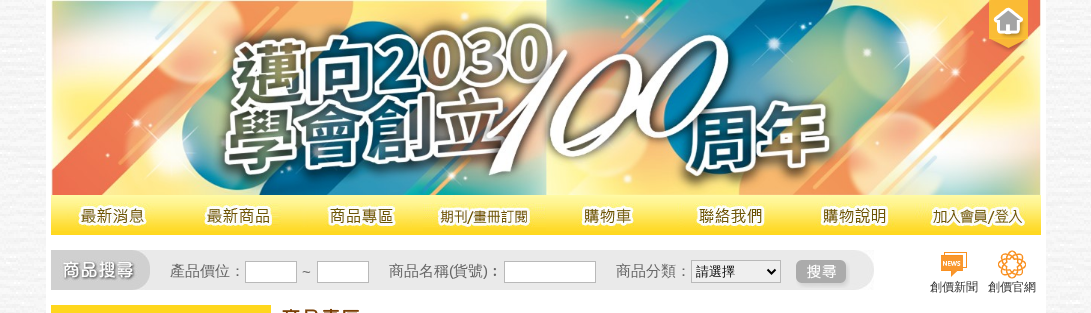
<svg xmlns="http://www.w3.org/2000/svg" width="1091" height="313">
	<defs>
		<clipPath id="clip1"><rect x="696" y="263" width="68" height="17" /></clipPath>
	</defs>
	<rect width="100%" height="100%" fill="#FFFFFF" />
	<image x="0" y="0" width="1091" height="313" href="assets/img1.png" />
	<rect x="46" y="0" width="1000" height="313" fill="#FFFFFF" />
	<image x="51" y="0" width="990" height="195" href="assets/img2.png" />
	<image x="989" y="0" width="39" height="52" href="assets/img3.png" />
	<image x="51" y="195" width="126" height="40" href="assets/img4.png" />
	<image x="177" y="195" width="123" height="40" href="assets/img5.png" />
	<image x="300" y="195" width="123" height="40" href="assets/img6.png" />
	<image x="423" y="195" width="123" height="40" href="assets/img7.png" />
	<image x="546" y="195" width="123" height="40" href="assets/img8.png" />
	<image x="669" y="195" width="123" height="40" href="assets/img9.png" />
	<image x="792" y="195" width="123" height="40" href="assets/img10.png" />
	<image x="915" y="195" width="126" height="40" href="assets/img11.png" />
	<image x="150" y="250" width="724" height="40" href="assets/img12.png" />
	<image x="51" y="250" width="99" height="40" href="assets/img13.png" />
	<text x="170" y="276" font-family="WenQuanYi Zen Hei" font-size="15" font-weight="500" fill="#666666">產品價位：</text>
	<rect x="245.5" y="261.5" width="51" height="21" fill="#FFFFFF" stroke="#B9B9B9" />
	<text x="302" y="277" font-family="Liberation Sans" font-size="15" fill="#666666">~</text>
	<rect x="317.5" y="261.5" width="51" height="21" fill="#FFFFFF" stroke="#B9B9B9" />
	<text x="389" y="276" font-family="WenQuanYi Zen Hei" font-size="15" font-weight="500" fill="#666666">商品名稱</text>
	<text x="449" y="276" font-family="Liberation Sans" font-size="15" fill="#666666">(</text>
	<text x="453" y="276" font-family="WenQuanYi Zen Hei" font-size="15" font-weight="500" fill="#666666">貨號</text>
	<text x="483" y="276" font-family="Liberation Sans" font-size="15" fill="#666666">)</text>
	<text x="488" y="276" font-family="WenQuanYi Zen Hei" font-size="15" font-weight="500" fill="#666666">︰</text>
	<rect x="504.5" y="261.5" width="91" height="21" fill="#FFFFFF" stroke="#B9B9B9" />
	<text x="616" y="276" font-family="WenQuanYi Zen Hei" font-size="15" font-weight="500" fill="#666666">商品分類：</text>
	<rect x="691.5" y="260.5" width="89" height="22" fill="#EFEFEF" stroke="#B9B9B9" />
	<path d="M767.5 269.5L771.5 273.5L775.5 269.5" fill="none" stroke="#000000" stroke-width="2" />
	<g clip-path="url(#clip1)">
		<text x="696" y="276" font-family="WenQuanYi Zen Hei" font-size="13" font-weight="500" fill="#000000">請選擇</text>
	</g>
	<image x="796" y="260" width="54" height="28" href="assets/img14.png" />
	<image x="941" y="252" width="26" height="25" href="assets/img15.png" />
	<text x="930" y="291" font-family="WenQuanYi Zen Hei" font-size="12" font-weight="500" fill="#333333">創價新聞</text>
	<image x="998" y="250" width="28" height="29" href="assets/img16.png" />
	<text x="988" y="291" font-family="WenQuanYi Zen Hei" font-size="12" font-weight="500" fill="#333333">創價官網</text>
	<rect x="51.5" y="305.5" width="219" height="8" fill="none" stroke="#FFD71C" />
	<rect x="52" y="306" width="218" height="7" fill="#FFD71D" />
	<image x="282" y="308" width="77" height="5" href="assets/img17.png" />
</svg>
